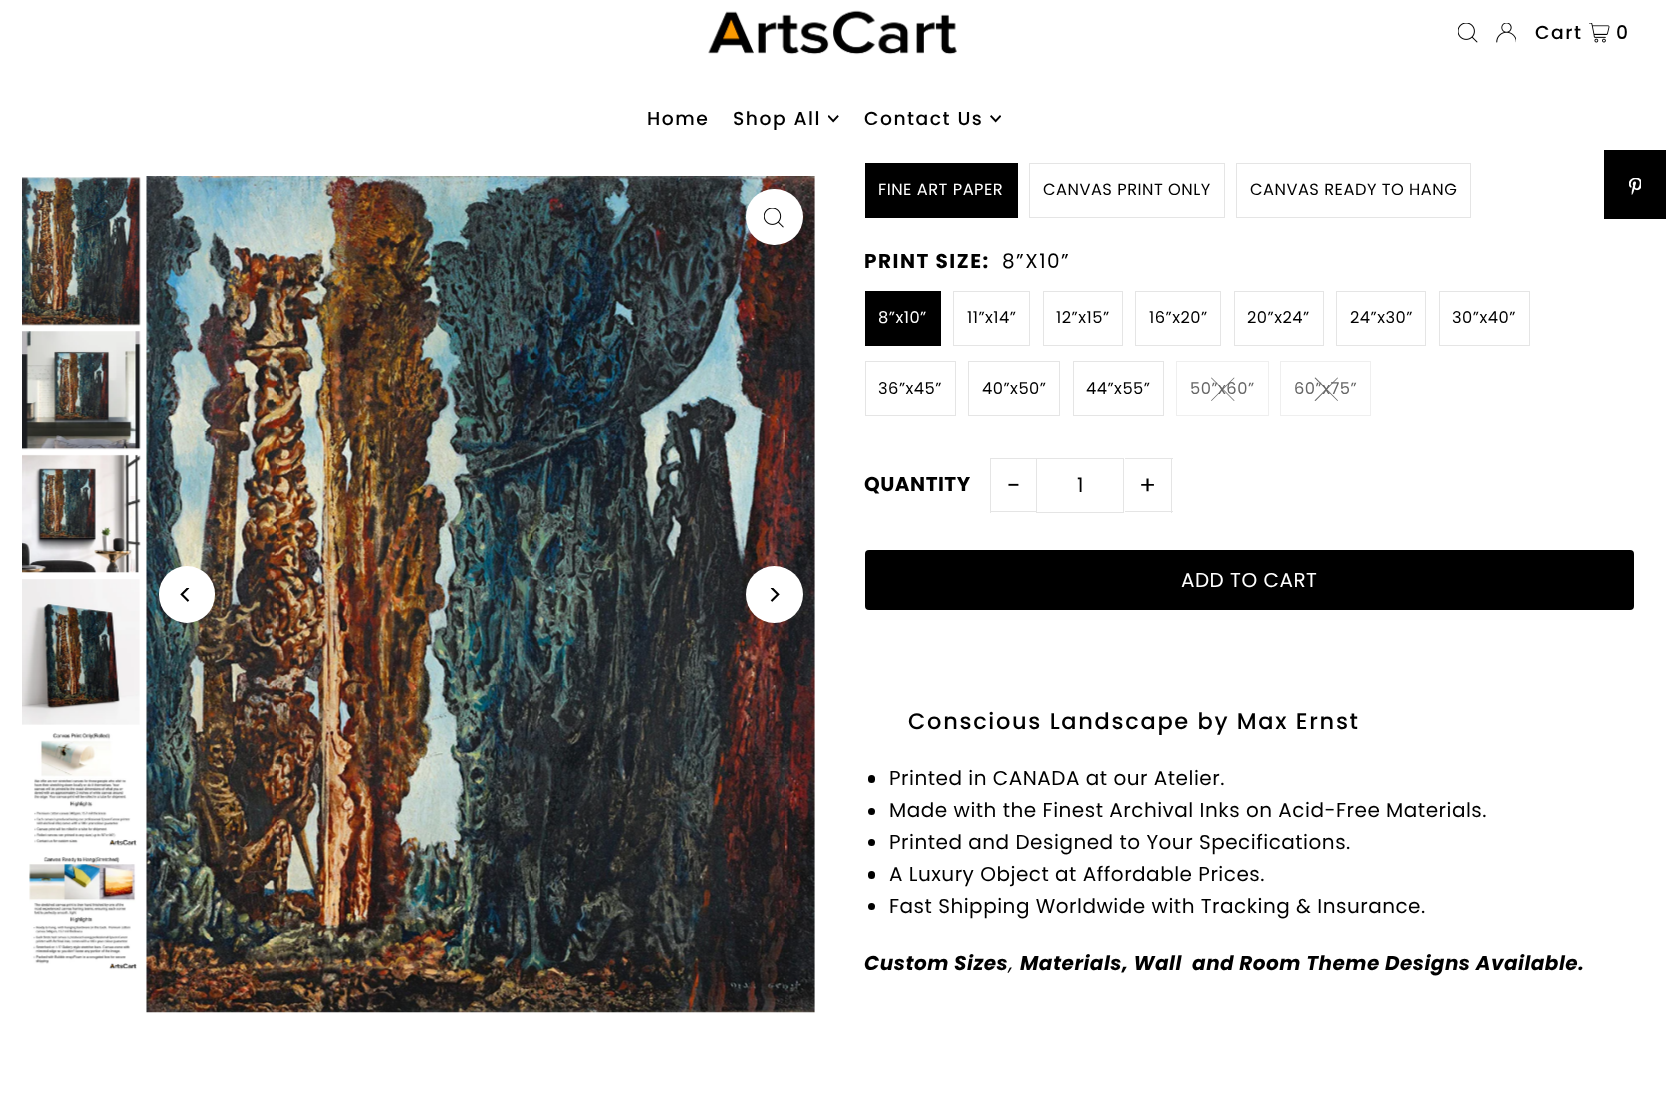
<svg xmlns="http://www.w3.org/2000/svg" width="1666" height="1111">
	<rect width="100%" height="100%" fill="#FFFFFF" />
	<image x="708" y="10" width="249" height="45" href="assets/img1.png" />
	<image x="1458" y="23" width="20" height="20" href="assets/img2.png" />
	<image x="1496" y="23" width="20" height="20" href="assets/img3.png" />
	<text x="1535" y="39" font-family="Poppins" font-size="18.75" font-weight="500" letter-spacing="1.5" fill="#000000">Cart</text>
	<image x="1589" y="23" width="21" height="20" href="assets/img4.png" />
	<g font-family="Poppins" font-size="18.75" font-weight="500" letter-spacing="1.5" fill="#000000">
		<text x="1616" y="39">0</text>
		<text x="647" y="125">Home</text>
		<text x="733" y="125">Shop All</text>
	</g>
	<image x="828" y="115" width="11" height="8" href="assets/img5.png" />
	<text x="864" y="125" font-family="Poppins" font-size="18.75" font-weight="500" letter-spacing="1.5" fill="#000000">Contact Us</text>
	<image x="990" y="115" width="11" height="8" href="assets/img6.png" />
	<image x="22" y="177" width="119" height="149" href="assets/img7.png" />
	<image x="22" y="331" width="119" height="119" href="assets/img8.png" />
	<image x="22" y="454" width="119" height="119" href="assets/img9.png" />
	<image x="22" y="579" width="118" height="146" href="assets/img10.png" />
	<image x="34" y="733" width="103" height="113" href="assets/img11.png" />
	<image x="29" y="857" width="108" height="113" href="assets/img12.png" />
	<image x="146" y="176" width="669" height="837" href="assets/img13.png" />
	<rect x="746" y="189" width="57" height="56" rx="28" fill="#FFFFFF" />
	<image x="764" y="208" width="20" height="20" href="assets/img14.png" />
	<rect x="159" y="566" width="56" height="57" rx="28" fill="#FFFFFF" />
	<image x="180" y="588" width="10" height="14" href="assets/img15.png" />
	<circle cx="774.5" cy="594.5" r="28.5" fill="#FFFFFF" />
	<image x="770" y="588" width="10" height="14" href="assets/img16.png" />
	<rect x="865" y="163" width="153" height="55" fill="#000000" />
	<text x="878" y="195" font-family="Poppins" font-size="16.25" letter-spacing="0.5" fill="#FFFFFF">FINE ART PAPER</text>
	<rect x="1029.5" y="163.5" width="195" height="54" fill="none" stroke="#E5E5E5" />
	<text x="1043" y="195" font-family="Poppins" font-size="16.25" letter-spacing="0.5" fill="#000000">CANVAS PRINT ONLY</text>
	<rect x="1236.5" y="163.5" width="234" height="54" fill="none" stroke="#E5E5E5" />
	<text x="1250" y="195" font-family="Poppins" font-size="16.25" letter-spacing="0.5" fill="#000000">CANVAS READY TO HANG</text>
	<text x="864" y="268" font-family="Poppins" font-size="20" font-weight="700" letter-spacing="1.5" fill="#000000">PRINT SIZE:</text>
	<text x="1002" y="268" font-family="Poppins" font-size="20" letter-spacing="1.5" fill="#000000">8”X10”</text>
	<rect x="865" y="291" width="76" height="55" fill="#000000" />
	<text x="878" y="323" font-family="Poppins" font-size="16.25" letter-spacing="0.5" fill="#FFFFFF">8”x10”</text>
	<rect x="953.5" y="291.5" width="76" height="54" fill="none" stroke="#E5E5E5" />
	<text x="967" y="323" font-family="Poppins" font-size="16.25" letter-spacing="0.5" fill="#000000">11”x14”</text>
	<rect x="1043.5" y="291.5" width="79" height="54" fill="none" stroke="#E5E5E5" />
	<text x="1056" y="323" font-family="Poppins" font-size="16.25" letter-spacing="0.5" fill="#000000">12”x15”</text>
	<rect x="1135.5" y="291.5" width="85" height="54" fill="none" stroke="#E5E5E5" />
	<text x="1149" y="323" font-family="Poppins" font-size="16.25" letter-spacing="0.5" fill="#000000">16”x20”</text>
	<rect x="1234.5" y="291.5" width="89" height="54" fill="none" stroke="#E5E5E5" />
	<text x="1247" y="323" font-family="Poppins" font-size="16.25" letter-spacing="0.5" fill="#000000">20”x24”</text>
	<rect x="1336.5" y="291.5" width="89" height="54" fill="none" stroke="#E5E5E5" />
	<text x="1350" y="323" font-family="Poppins" font-size="16.25" letter-spacing="0.5" fill="#000000">24”x30”</text>
	<rect x="1439.5" y="291.5" width="90" height="54" fill="none" stroke="#E5E5E5" />
	<text x="1452" y="323" font-family="Poppins" font-size="16.25" letter-spacing="0.5" fill="#000000">30”x40”</text>
	<rect x="865.5" y="361.5" width="90" height="54" fill="none" stroke="#E5E5E5" />
	<text x="878" y="394" font-family="Poppins" font-size="16.25" letter-spacing="0.5" fill="#000000">36”x45”</text>
	<rect x="968.5" y="361.5" width="91" height="54" fill="none" stroke="#E5E5E5" />
	<text x="982" y="394" font-family="Poppins" font-size="16.25" letter-spacing="0.5" fill="#000000">40”x50”</text>
	<rect x="1073.5" y="361.5" width="90" height="54" fill="none" stroke="#E5E5E5" />
	<text x="1086" y="394" font-family="Poppins" font-size="16.25" letter-spacing="0.5" fill="#000000">44”x55”</text>
	<rect x="1176.5" y="361.5" width="92" height="54" fill="none" stroke="#EFEFEF" />
	<path d="M1234 377.5L1234.5 378L1211.5 401L1211 400.5Z" fill="#666666" />
	<path d="M1234.5 400.5L1234 401L1211 378L1211.5 377.5Z" fill="#666666" />
	<text x="1190" y="394" font-family="Poppins" font-size="16.25" letter-spacing="0.5" fill="#666666">50”x60”</text>
	<rect x="1280.5" y="361.5" width="90" height="54" fill="none" stroke="#EFEFEF" />
	<path d="M1337.5 377.5L1338 378L1315.5 401L1314.5 400.5Z" fill="#666666" />
	<path d="M1338 400.5L1337.5 401L1314.5 378L1315.5 377.5Z" fill="#666666" />
	<text x="1294" y="394" font-family="Poppins" font-size="16.25" letter-spacing="0.5" fill="#666666">60”x75”</text>
	<text x="864" y="491" font-family="Poppins" font-size="20" font-weight="700" letter-spacing="0.5" fill="#000000">QUANTITY</text>
	<rect x="990" y="458" width="48" height="1" fill="#E5E5E5" />
	<rect x="990" y="511" width="48" height="1" fill="#E5E5E5" />
	<rect x="990" y="458" width="1" height="55" fill="#E5E5E5" />
	<text x="1007" y="494" font-family="Poppins" font-size="25" letter-spacing="1" fill="#000000">-</text>
	<rect x="1037" y="511" width="1" height="1" fill="#FFFFFF" />
	<rect x="1036.5" y="458.5" width="87" height="54" fill="none" stroke="#E5E5E5" />
	<text x="1077" y="492" font-family="Poppins" font-size="20" letter-spacing="0.5" fill="#000000">1</text>
	<rect x="1125" y="458" width="48" height="1" fill="#E5E5E5" />
	<rect x="1171" y="458" width="1" height="55" fill="#E5E5E5" />
	<rect x="1125" y="511" width="48" height="1" fill="#E5E5E5" />
	<text x="1139" y="494" font-family="Poppins" font-size="25" letter-spacing="1" fill="#000000">+</text>
	<rect x="865" y="550" width="769" height="60" rx="4" fill="#000000" />
	<text x="1181" y="587" font-family="Poppins" font-size="20" letter-spacing="0.5" fill="#FFFFFF">ADD TO CART</text>
	<text x="908" y="729" font-family="Poppins" font-size="22.5" font-weight="500" letter-spacing="1.7" fill="#000000">Conscious Landscape by Max Ernst</text>
	<rect x="868" y="775" width="7" height="8" rx="3.5" fill="#000000" />
	<text x="889" y="785" font-family="Poppins" font-size="20" letter-spacing="0.5" fill="#000000">Printed in CANADA at our Atelier.</text>
	<circle cx="871.5" cy="811.5" r="3.5" fill="#000000" />
	<text x="889" y="817" font-family="Poppins" font-size="20" letter-spacing="0.5" fill="#000000">Made with the Finest Archival Inks on Acid-Free Materials.</text>
	<circle cx="871.5" cy="842.5" r="3.5" fill="#000000" />
	<text x="889" y="849" font-family="Poppins" font-size="20" letter-spacing="0.5" fill="#000000">Printed and Designed to Your Specifications.</text>
	<rect x="868" y="871" width="7" height="8" rx="3.5" fill="#000000" />
	<text x="889" y="881" font-family="Poppins" font-size="20" letter-spacing="0.5" fill="#000000">A Luxury Object at Affordable Prices.</text>
	<circle cx="871.5" cy="906.5" r="3.5" fill="#000000" />
	<text x="889" y="913" font-family="Poppins" font-size="20" letter-spacing="0.5" fill="#000000">Fast Shipping Worldwide with Tracking &amp; Insurance.</text>
	<text x="864" y="970" font-family="Poppins" font-size="20" font-weight="700" font-style="italic" letter-spacing="0.5" fill="#000000">Custom Sizes</text>
	<text x="1009" y="970" font-family="Poppins" font-size="20" font-style="italic" letter-spacing="0.5" fill="#000000">,</text>
	<text x="1020" y="970" font-family="Poppins" font-size="20" font-weight="700" font-style="italic" letter-spacing="0.5" fill="#000000" xml:space="preserve">Materials, Wall  and Room Theme Designs Available.</text>
	<rect x="1604" y="150" width="62" height="69" fill="#000000" />
	<image x="1629" y="178" width="12" height="17" href="assets/img17.png" />
</svg>
